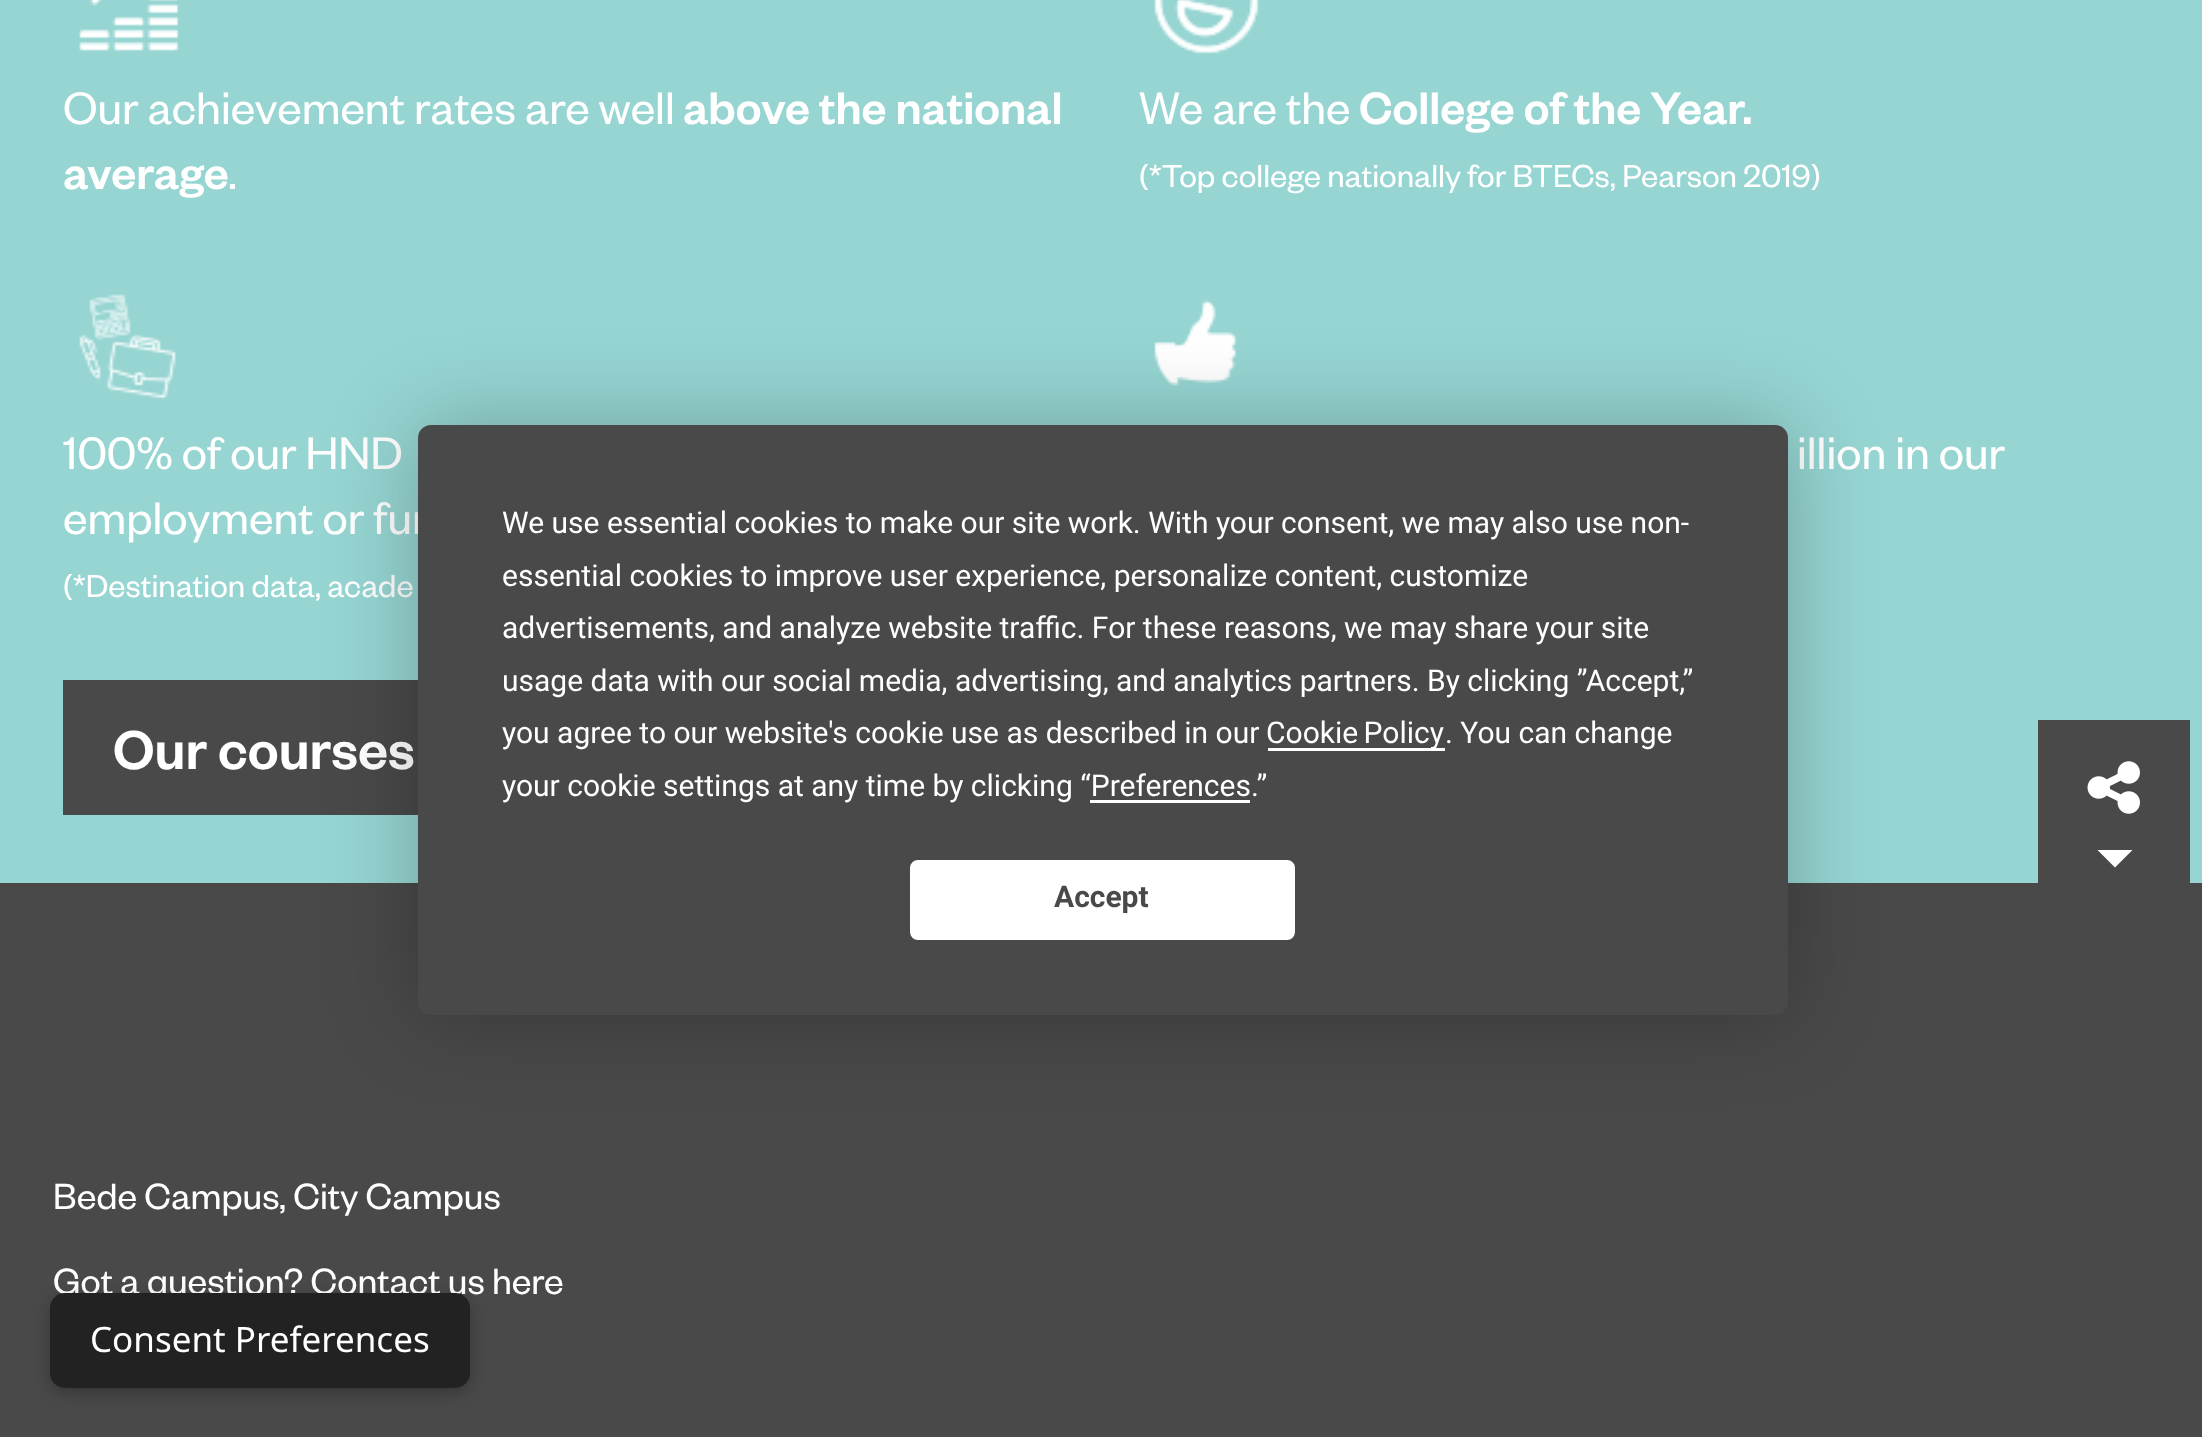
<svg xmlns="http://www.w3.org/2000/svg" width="2202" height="1437">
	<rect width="100%" height="100%" fill="#4A4949" />
	<rect x="0" y="0" width="2202" height="883" fill="#96D5D2" />
	<image x="79" y="0" width="100" height="51" href="assets/img1.png" />
	<text x="63" y="124" font-family="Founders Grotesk" font-size="50" fill="#FFFFFF">Our achievement rates are well</text>
	<g font-family="Founders Grotesk" font-size="50" font-weight="500" fill="#FFFFFF">
		<text x="683" y="124">above the national</text>
		<text x="63" y="189">average</text>
	</g>
	<text x="228" y="189" font-family="Founders Grotesk" font-size="50" fill="#FFFFFF">.</text>
	<image x="1154" y="0" width="105" height="54" href="assets/img2.png" />
	<text x="1139" y="124" font-family="Founders Grotesk" font-size="50" fill="#FFFFFF">We are the</text>
	<text x="1359" y="124" font-family="Founders Grotesk" font-size="50" font-weight="500" fill="#FFFFFF">College of the Year.</text>
	<text x="1139" y="187" font-family="Founders Grotesk" font-size="35" fill="#FFFFFF">(*Top college nationally for BTECs, Pearson 2019)</text>
	<image x="79" y="294" width="97" height="105" href="assets/img3.png" />
	<g font-family="Founders Grotesk" font-size="50" fill="#FFFFFF">
		<text x="63" y="469">100% of our HND</text>
		<text x="63" y="534">employment or fur</text>
	</g>
	<text x="63" y="597" font-family="Founders Grotesk" font-size="35" fill="#FFFFFF">(*Destination data, acade</text>
	<image x="1154" y="299" width="84" height="87" href="assets/img4.png" />
	<text x="1797" y="469" font-family="Founders Grotesk" font-size="50" fill="#FFFFFF">illion in our</text>
	<rect x="63" y="680" width="355" height="135" fill="#4A4949" />
	<text x="113" y="769" font-family="Founders Grotesk" font-size="60" font-weight="500" fill="#FFFFFF">Our courses</text>
	<g font-family="Founders Grotesk" font-size="40" fill="#FFFFFF">
		<text x="53" y="1209">Bede Campus</text>
		<text x="279" y="1209">, City Campus</text>
		<text x="53" y="1294">Got a question? Contact us here</text>
	</g>
	<rect x="418" y="425" width="1370" height="590" rx="13" fill="#000000" fill-opacity="0.25" filter="blur(44px)" />
	<rect x="418" y="425" width="1370" height="590" rx="13" fill="#4A4949" />
	<g font-family="Roboto" font-size="30" fill="#FFFFFF">
		<text x="502" y="533">We use essential cookies to make our site work. With your consent, we may also use non-</text>
		<text x="502" y="586">essential cookies to improve user experience, personalize content, customize</text>
		<text x="502" y="638">advertisements, and analyze website traffic. For these reasons, we may share your site</text>
		<text x="502" y="691">usage data with our social media, advertising, and analytics partners. By clicking ”Accept,”</text>
		<text x="502" y="743">you agree to our website's cookie use as described in our</text>
	</g>
	<rect x="1268" y="748" width="177" height="3" fill="#FFFFFF" />
	<g font-family="Roboto" font-size="30" fill="#FFFFFF">
		<text x="1266" y="743" word-spacing="-2">Cookie Policy</text>
		<text x="1445" y="743">. You can change</text>
		<text x="502" y="796">your cookie settings at any time by clicking “Preferences.”</text>
	</g>
	<rect x="1090" y="800" width="160" height="3" fill="#FFFFFF" />
	<rect x="911.5" y="861.5" width="382" height="77" rx="6.5" fill="#FFFFFF" stroke="#FFFFFF" stroke-width="3" />
	<text x="1054" y="907" font-family="Roboto" font-size="30" font-weight="700" fill="#4A4949">Accept</text>
	<rect x="2038" y="720" width="152" height="163" fill="#4A4949" />
	<image x="2087" y="761" width="53" height="53" href="assets/img5.png" />
	<path d="M2097.5 850H2132.5L2115 867.5Z" fill="#FFFFFF" />
	<rect x="50" y="1298" width="420" height="95" rx="15" fill="#000000" fill-opacity="0.25" filter="blur(7.5px)" />
	<rect x="50" y="1293" width="420" height="95" rx="15" fill="#222222" />
	<text x="90" y="1352" font-family="Noto Sans" font-size="35" fill="#FFFFFF">Consent Preferences</text>
</svg>
